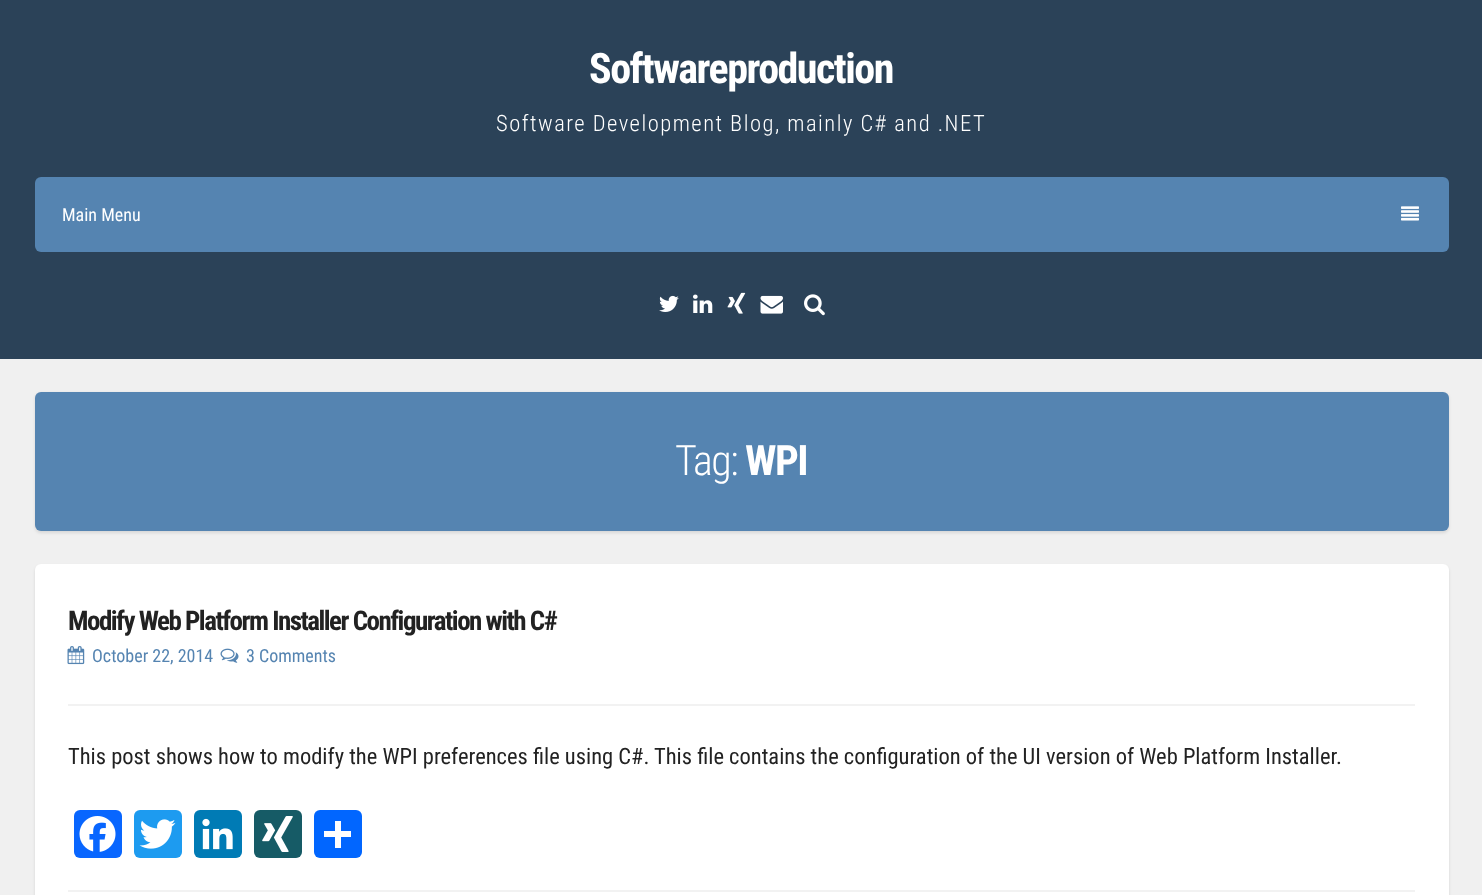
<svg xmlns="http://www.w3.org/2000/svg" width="1482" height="895">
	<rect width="100%" height="100%" fill="#F0F0F0" />
	<rect x="0" y="0" width="1482" height="359" fill="#2B4258" />
	<text x="589" y="83" font-family="Roboto Condensed" font-size="42" font-weight="700" letter-spacing="-1.5" fill="#FFFFFF">Softwareproduction</text>
	<text x="496" y="131" font-family="Roboto Condensed" font-size="22.5" font-weight="300" letter-spacing="1.5" fill="#FFFFFF">Software Development Blog, mainly C# and .NET</text>
	<rect x="35" y="177" width="1414" height="75" rx="6" fill="#5584B1" />
	<text x="62" y="221" font-family="Roboto Condensed" font-size="18" fill="#FFFFFF">Main Menu</text>
	<image x="1401" y="206" width="18" height="15" href="assets/img1.png" />
	<image x="659" y="295" width="20" height="17" href="assets/img2.png" />
	<image x="693" y="294" width="20" height="19" href="assets/img3.png" />
	<image x="727" y="292" width="19" height="22" href="assets/img4.png" />
	<image x="760" y="295" width="23" height="19" href="assets/img5.png" />
	<image x="804" y="294" width="21" height="22" href="assets/img6.png" />
	<rect x="35" y="393" width="1414" height="140" rx="6" fill="#000000" fill-opacity="0.1" filter="blur(1.5px)" />
	<rect x="35" y="392" width="1414" height="139" rx="6" fill="#5584B1" />
	<text x="675" y="475" font-family="Roboto Condensed" font-size="42" font-weight="300" letter-spacing="-1.5" fill="#FFFFFF">Tag:</text>
	<text x="745" y="475" font-family="Roboto Condensed" font-size="42" font-weight="700" letter-spacing="-1.5" fill="#FFFFFF">WPI</text>
	<rect x="35" y="566" width="1414" height="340" rx="6" fill="#000000" fill-opacity="0.1" filter="blur(1.5px)" />
	<rect x="35" y="564" width="1414" height="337" rx="6" fill="#FFFFFF" />
	<rect x="68" y="704" width="1347" height="2" fill="#F2F2F2" />
	<text x="68" y="630" font-family="Roboto Condensed" font-size="27" font-weight="700" letter-spacing="-1.5" fill="#222222">Modify Web Platform Installer Configuration with C#</text>
	<image x="67" y="646" width="18" height="19" href="assets/img7.png" />
	<text x="92" y="662" font-family="Roboto Condensed" font-size="18" fill="#5584B1">October 22, 2014</text>
	<image x="220" y="648" width="19" height="15" href="assets/img8.png" />
	<text x="246" y="662" font-family="Roboto Condensed" font-size="18" fill="#5584B1">3 Comments</text>
	<text x="68" y="764" font-family="Roboto Condensed" font-size="22.5" fill="#222222">This post shows how to modify the WPI preferences file using C#. This file contains the configuration of the UI version of Web Platform Installer.</text>
	<rect x="74" y="810" width="48" height="48" rx="6" fill="#0866FF" />
	<image x="79" y="816" width="37" height="36" href="assets/img9.png" />
	<rect x="134" y="810" width="48" height="48" rx="6" fill="#1D9BF0" />
	<image x="139" y="819" width="37" height="30" href="assets/img10.png" />
	<rect x="194" y="810" width="48" height="48" rx="6" fill="#007BB5" />
	<image x="202" y="818" width="31" height="32" href="assets/img11.png" />
	<rect x="254" y="810" width="48" height="48" rx="6" fill="#165B66" />
	<image x="262" y="816" width="31" height="36" href="assets/img12.png" />
	<rect x="314" y="810" width="48" height="48" rx="6" fill="#0166FF" />
	<rect x="335" y="821" width="6" height="27" fill="#FFFFFF" />
	<rect x="324" y="831" width="27" height="6" fill="#FFFFFF" />
	<rect x="68" y="890" width="1347" height="2" fill="#F2F2F2" />
</svg>
